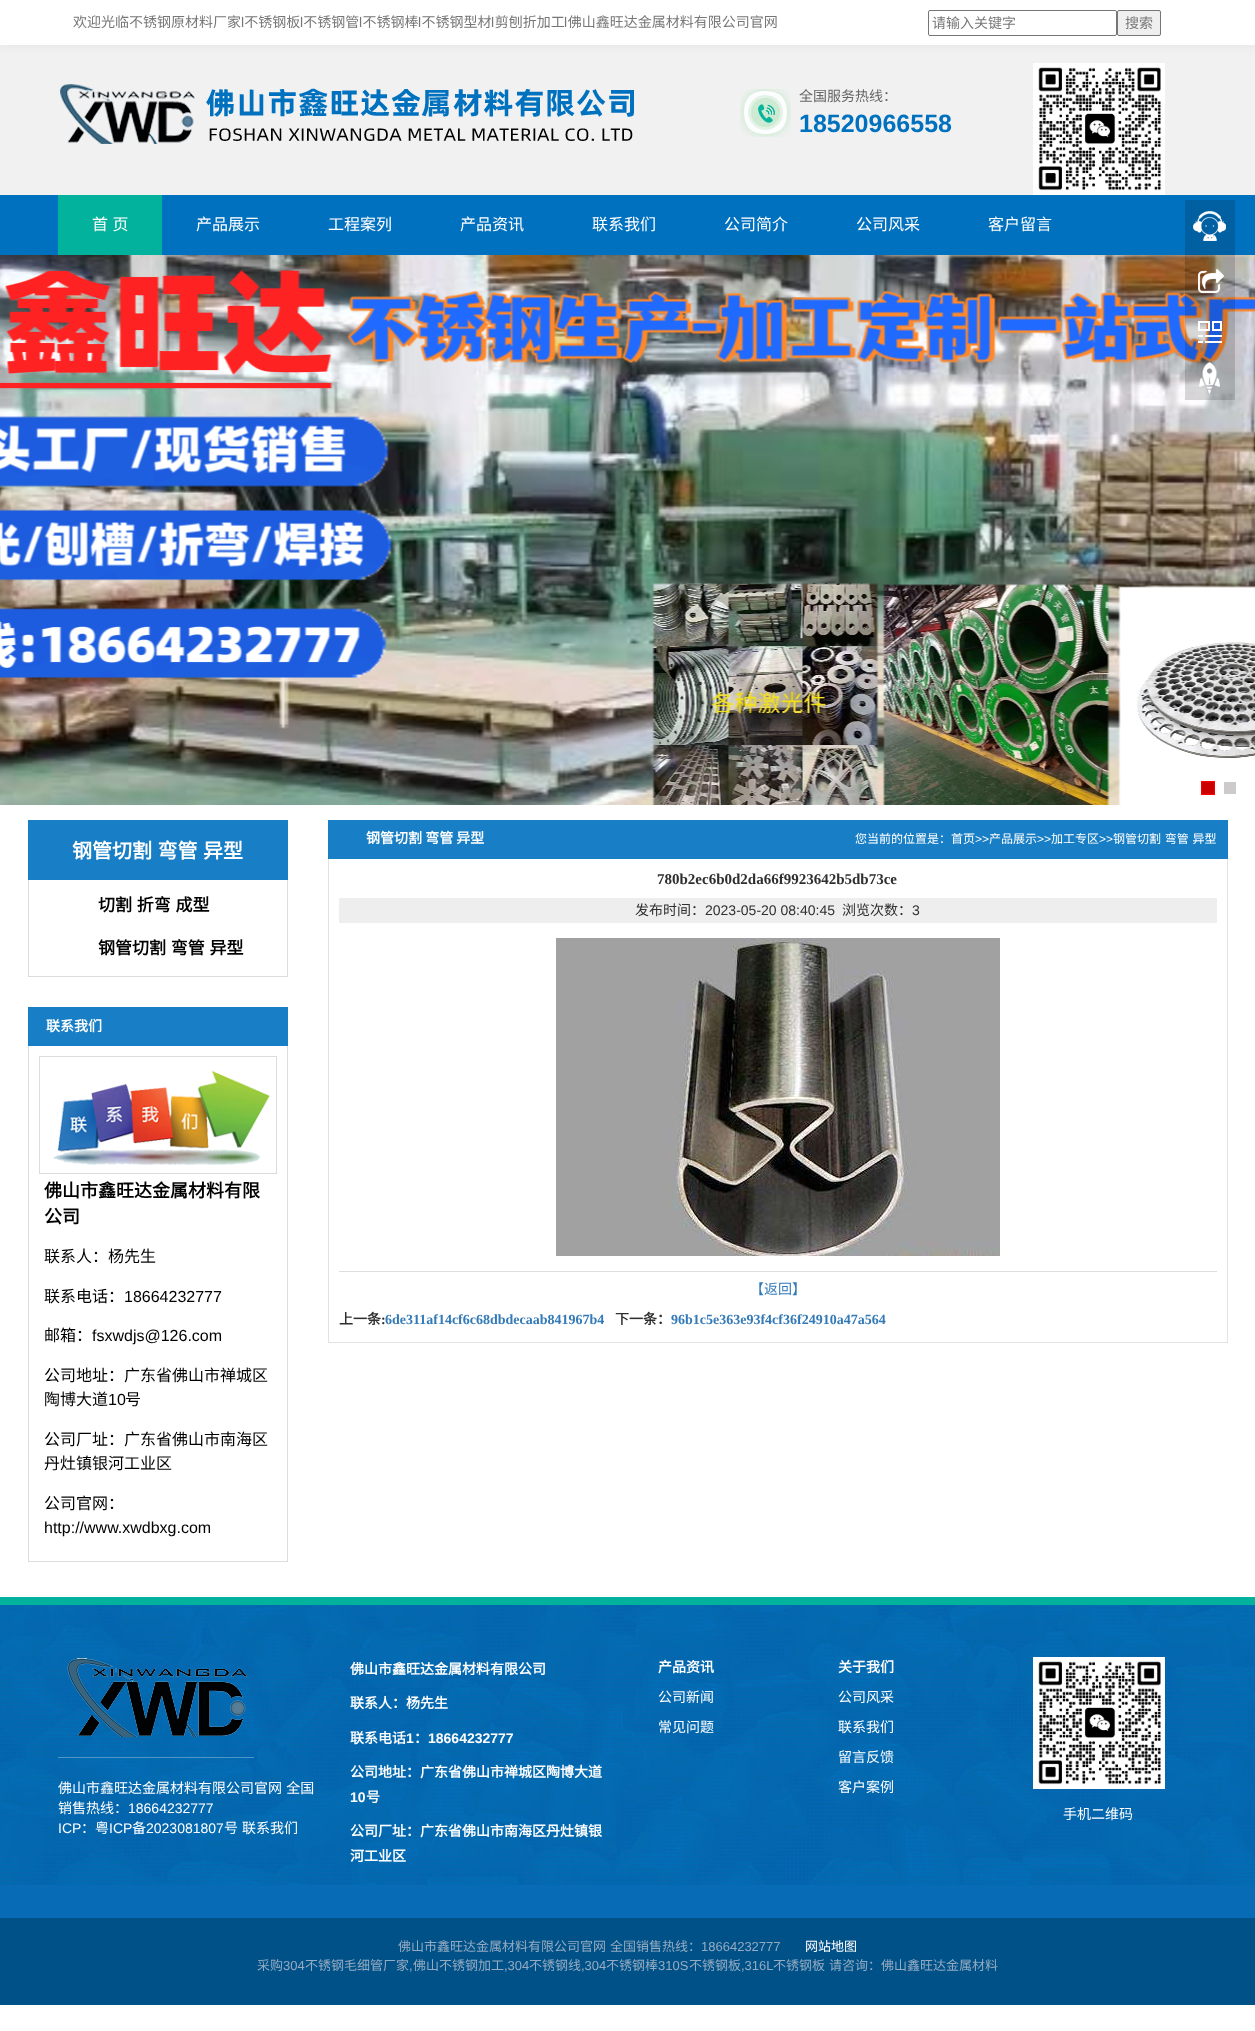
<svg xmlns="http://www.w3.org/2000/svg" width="1255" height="2031">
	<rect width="100%" height="100%" fill="#FFFFFF" />
	<rect x="0" y="45" width="1255" height="150" fill="#F1F1F1" />
	<rect x="0" y="0" width="1255" height="45" fill="#E2E2E2" filter="blur(5px)" />
	<rect x="0" y="0" width="1255" height="45" fill="#FFFFFF" />
	<text x="73" y="27" font-family="Noto Sans CJK SC" font-size="14" fill="#777777">欢迎光临不锈钢原材料厂家 不锈钢板 不锈钢管 不锈钢棒 不锈钢型材 剪刨折加工 佛山鑫旺达金属材料有限公司官网</text>
	<g font-family="Liberation Sans" font-size="14" fill="#777777">
		<text x="241" y="27">l</text>
		<text x="300" y="27">l</text>
		<text x="359" y="27">l</text>
		<text x="418" y="27">l</text>
		<text x="491" y="27">l</text>
		<text x="564" y="27">l</text>
	</g>
	<rect x="928.5" y="10.5" width="188" height="25" rx="1.5" fill="none" stroke="#767676" />
	<text x="932" y="28" font-family="Noto Sans CJK SC" font-size="14" fill="#777777">请输入关键字</text>
	<rect x="1117.5" y="10.5" width="43" height="25" rx="1.5" fill="#EFEFEF" stroke="#767676" />
	<text x="1125" y="28" font-family="Noto Sans CJK SC" font-size="14" fill="#777777">搜索</text>
	<image x="60" y="84" width="574" height="60" href="assets/img1.png" />
	<image x="740" y="89" width="51" height="48" href="assets/img2.png" />
	<text x="799" y="101" font-family="Noto Sans CJK SC" font-size="14" fill="#666666">全国服务热线：</text>
	<text x="799" y="132" font-family="Liberation Sans" font-size="25" font-weight="700" fill="#0071BE">18520966558</text>
	<image x="1033" y="63" width="132" height="132" href="assets/img3.png" />
	<rect x="0" y="195" width="1255" height="60" fill="#0071BF" />
	<rect x="58" y="195" width="104" height="60" fill="#02B29C" />
	<g font-family="Noto Sans CJK SC" font-size="16" fill="#FFFFFF">
		<text x="92" y="230" word-spacing="1">首 页</text>
		<text x="196" y="230">产品展示</text>
		<text x="328" y="230">工程案列</text>
		<text x="460" y="230">产品资讯</text>
		<text x="592" y="230">联系我们</text>
		<text x="724" y="230">公司简介</text>
		<text x="856" y="230">公司风采</text>
		<text x="988" y="230">客户留言</text>
	</g>
	<image x="0" y="255" width="1255" height="550" href="assets/img5.png" />
	<image x="1185" y="200" width="50" height="200" href="assets/img4.png" />
	<rect x="1201.5" y="781.5" width="13" height="13" fill="#CC0000" stroke="#FF0000" />
	<rect x="1224" y="782" width="12" height="12" fill="#CCCACA" />
	<rect x="28" y="820" width="260" height="60" fill="#187EC5" />
	<text x="72" y="858" word-spacing="1" font-family="Noto Sans CJK SC" font-size="20" font-weight="700" fill="#FFFFFF">钢管切割 弯管 异型</text>
	<rect x="287" y="880" width="1" height="97" fill="#DCDCDC" />
	<rect x="28" y="976" width="260" height="1" fill="#DCDCDC" />
	<rect x="28" y="880" width="1" height="97" fill="#DCDCDC" />
	<g font-family="Noto Sans CJK SC" font-size="17" font-weight="700" fill="#000000">
		<text x="98" y="911" word-spacing="1">切割 折弯 成型</text>
		<text x="98" y="954" word-spacing="1">钢管切割 弯管 异型</text>
	</g>
	<rect x="28" y="1007" width="260" height="39" fill="#187EC5" />
	<text x="46" y="1031" font-family="Noto Sans CJK SC" font-size="14" font-weight="700" fill="#FFFFFF">联系我们</text>
	<rect x="287" y="1046" width="1" height="516" fill="#DCDCDC" />
	<rect x="28" y="1561" width="260" height="1" fill="#DCDCDC" />
	<rect x="28" y="1046" width="1" height="516" fill="#DCDCDC" />
	<rect x="39.5" y="1056.5" width="237" height="117" fill="none" stroke="#DCDCDC" />
	<image x="53" y="1070" width="217" height="95" href="assets/img6.png" />
	<g font-family="Noto Sans CJK SC" font-size="18" font-weight="700" fill="#000000">
		<text x="44" y="1197">佛山市鑫旺达金属材料有限</text>
		<text x="44" y="1223">公司</text>
	</g>
	<g font-family="Noto Sans CJK SC" font-size="16" fill="#000000">
		<text x="44" y="1262">联系人：杨先生</text>
		<text x="44" y="1302">联系电话：</text>
	</g>
	<text x="124" y="1302" font-family="Liberation Sans" font-size="16" fill="#000000">18664232777</text>
	<text x="44" y="1341" font-family="Noto Sans CJK SC" font-size="16" fill="#000000">邮箱：</text>
	<text x="92" y="1341" font-family="Liberation Sans" font-size="16" fill="#000000">fsxwdjs@126.com</text>
	<g font-family="Noto Sans CJK SC" font-size="16" fill="#000000">
		<text x="44" y="1381">公司地址：广东省佛山市禅城区</text>
		<text x="44" y="1405">陶博大道</text>
	</g>
	<text x="108" y="1405" font-family="Liberation Sans" font-size="16" fill="#000000">10</text>
	<g font-family="Noto Sans CJK SC" font-size="16" fill="#000000">
		<text x="125" y="1405">号</text>
		<text x="44" y="1445">公司厂址：广东省佛山市南海区</text>
		<text x="44" y="1469">丹灶镇银河工业区</text>
		<text x="44" y="1509">公司官网：</text>
	</g>
	<text x="44" y="1533" font-family="Liberation Sans" font-size="16" fill="#000000">http://www.xwdbxg.com</text>
	<rect x="328" y="820" width="900" height="39" fill="#187EC5" />
	<text x="366" y="843" font-family="Noto Sans CJK SC" font-size="14" font-weight="700" fill="#FFFFFF">钢管切割 弯管 异型</text>
	<text x="855" y="843" font-family="Noto Sans CJK SC" font-size="12" fill="#FFFFFF">您当前的位置是：首页</text>
	<text x="975" y="843" font-family="Liberation Sans" font-size="12" fill="#FFFFFF">&gt;&gt;</text>
	<text x="989" y="843" font-family="Noto Sans CJK SC" font-size="12" fill="#FFFFFF">产品展示</text>
	<text x="1037" y="843" font-family="Liberation Sans" font-size="12" fill="#FFFFFF">&gt;&gt;</text>
	<text x="1051" y="843" font-family="Noto Sans CJK SC" font-size="12" fill="#FFFFFF">加工专区</text>
	<text x="1099" y="843" font-family="Liberation Sans" font-size="12" fill="#FFFFFF">&gt;&gt;</text>
	<text x="1113" y="843" word-spacing="1" font-family="Noto Sans CJK SC" font-size="12" fill="#FFFFFF">钢管切割 弯管 异型</text>
	<rect x="1227" y="859" width="1" height="484" fill="#E2E2E2" />
	<rect x="328" y="1342" width="900" height="1" fill="#E2E2E2" />
	<rect x="328" y="859" width="1" height="484" fill="#E2E2E2" />
	<text x="657" y="884" font-family="Liberation Serif" font-size="15" font-weight="700" fill="#2F2F2F">780b2ec6b0d2da66f9923642b5db73ce</text>
	<rect x="339" y="898" width="878" height="25" fill="#EEEEEE" />
	<text x="635" y="915" font-family="Noto Sans CJK SC" font-size="14" fill="#2F2F2F">发布时间：</text>
	<text x="705" y="915" font-family="Liberation Sans" font-size="14" fill="#2F2F2F">2023-05-20 08:40:45</text>
	<text x="842" y="915" font-family="Noto Sans CJK SC" font-size="14" fill="#2F2F2F">浏览次数：</text>
	<text x="912" y="915" font-family="Liberation Sans" font-size="14" fill="#2F2F2F">3</text>
	<rect x="339" y="1271" width="878" height="1" fill="#DEDEDE" />
	<image x="556" y="938" width="444" height="318" href="assets/img7.png" />
	<text x="750" y="1294" font-family="Noto Sans CJK SC" font-size="14" fill="#337AB7">【返回】</text>
	<text x="339" y="1324" font-family="Noto Sans CJK SC" font-size="14" font-weight="700" fill="#2F2F2F">上一条</text>
	<text x="381" y="1324" font-family="Liberation Serif" font-size="14" font-weight="700" fill="#2F2F2F">:</text>
	<text x="385" y="1324" font-family="Liberation Serif" font-size="14" font-weight="700" fill="#337AB7">6de311af14cf6c68dbdecaab841967b4</text>
	<text x="615" y="1324" font-family="Noto Sans CJK SC" font-size="14" font-weight="700" fill="#2F2F2F">下一条：</text>
	<text x="671" y="1324" font-family="Liberation Serif" font-size="14" font-weight="700" fill="#337AB7">96b1c5e363e93f4cf36f24910a47a564</text>
	<rect x="0" y="1885" width="1255" height="33" fill="#076BB5" />
	<image x="0" y="1597" width="1255" height="288" href="assets/img8.png" />
	<image x="67" y="1658" width="181" height="79" href="assets/img9.png" />
	<rect x="58" y="1757" width="196" height="1" fill="#4E97C5" />
	<g font-family="Noto Sans CJK SC" font-size="14" fill="#FFFFFF">
		<text x="58" y="1793" word-spacing="1">佛山市鑫旺达金属材料有限公司官网 全国</text>
		<text x="58" y="1813">销售热线：</text>
	</g>
	<g font-family="Liberation Sans" font-size="14" fill="#FFFFFF">
		<text x="128" y="1813">18664232777</text>
		<text x="58" y="1833">ICP</text>
	</g>
	<text x="81" y="1833" font-family="Noto Sans CJK SC" font-size="14" fill="#FFFFFF">：粤</text>
	<text x="109" y="1833" font-family="Liberation Sans" font-size="14" fill="#FFFFFF">ICP</text>
	<text x="132" y="1833" font-family="Noto Sans CJK SC" font-size="14" fill="#FFFFFF">备</text>
	<text x="146" y="1833" font-family="Liberation Sans" font-size="14" fill="#FFFFFF">2023081807</text>
	<g font-family="Noto Sans CJK SC" font-size="14" fill="#FFFFFF">
		<text x="224" y="1833">号</text>
		<text x="242" y="1833">联系我们</text>
	</g>
	<g font-family="Noto Sans CJK SC" font-size="14" font-weight="700" fill="#FFFFFF">
		<text x="350" y="1674">佛山市鑫旺达金属材料有限公司</text>
		<text x="350" y="1708">联系人：杨先生</text>
		<text x="350" y="1743">联系电话</text>
	</g>
	<text x="406" y="1743" font-family="Liberation Sans" font-size="14" font-weight="700" fill="#FFFFFF">1</text>
	<text x="414" y="1743" font-family="Noto Sans CJK SC" font-size="14" font-weight="700" fill="#FFFFFF">：</text>
	<text x="428" y="1743" font-family="Liberation Sans" font-size="14" font-weight="700" fill="#FFFFFF">18664232777</text>
	<text x="350" y="1777" font-family="Noto Sans CJK SC" font-size="14" font-weight="700" fill="#FFFFFF">公司地址：广东省佛山市禅城区陶博大道</text>
	<text x="350" y="1802" font-family="Liberation Sans" font-size="14" font-weight="700" fill="#FFFFFF">10</text>
	<g font-family="Noto Sans CJK SC" font-size="14" font-weight="700" fill="#FFFFFF">
		<text x="366" y="1802">号</text>
		<text x="350" y="1836">公司厂址：广东省佛山市南海区丹灶镇银</text>
		<text x="350" y="1861">河工业区</text>
		<text x="658" y="1672">产品资讯</text>
	</g>
	<g font-family="Noto Sans CJK SC" font-size="14" fill="#FFFFFF">
		<text x="658" y="1702">公司新闻</text>
		<text x="658" y="1732">常见问题</text>
	</g>
	<text x="838" y="1672" font-family="Noto Sans CJK SC" font-size="14" font-weight="700" fill="#FFFFFF">关于我们</text>
	<g font-family="Noto Sans CJK SC" font-size="14" fill="#FFFFFF">
		<text x="838" y="1702">公司风采</text>
		<text x="838" y="1732">联系我们</text>
		<text x="838" y="1762">留言反馈</text>
		<text x="838" y="1792">客户案例</text>
	</g>
	<image x="1033" y="1657" width="132" height="132" href="assets/img10.png" />
	<text x="1063" y="1819" font-family="Noto Sans CJK SC" font-size="14" fill="#FFFFFF">手机二维码</text>
	<rect x="0" y="1918" width="1255" height="87" fill="#005188" />
	<text x="398" y="1951" word-spacing="1" font-family="Noto Sans CJK SC" font-size="13" fill="#95ABC1">佛山市鑫旺达金属材料有限公司官网 全国销售热线：</text>
	<text x="701" y="1951" font-family="Liberation Sans" font-size="13" fill="#95ABC1">18664232777</text>
	<text x="805" y="1951" font-family="Noto Sans CJK SC" font-size="13" fill="#FFFFFF">网站地图</text>
	<text x="257" y="1970" font-family="Noto Sans CJK SC" font-size="13" fill="#95ABC1">采购</text>
	<text x="283" y="1970" font-family="Liberation Sans" font-size="13" fill="#95ABC1">304</text>
	<text x="305" y="1970" font-family="Noto Sans CJK SC" font-size="13" fill="#95ABC1">不锈钢毛细管厂家</text>
	<text x="409" y="1970" font-family="Liberation Sans" font-size="13" fill="#95ABC1">,</text>
	<text x="413" y="1970" font-family="Noto Sans CJK SC" font-size="13" fill="#95ABC1">佛山不锈钢加工</text>
	<text x="504" y="1970" font-family="Liberation Sans" font-size="13" fill="#95ABC1">,304</text>
	<text x="529" y="1970" font-family="Noto Sans CJK SC" font-size="13" fill="#95ABC1">不锈钢线</text>
	<text x="581" y="1970" font-family="Liberation Sans" font-size="13" fill="#95ABC1">,304</text>
	<text x="606" y="1970" font-family="Noto Sans CJK SC" font-size="13" fill="#95ABC1">不锈钢棒</text>
	<text x="658" y="1970" font-family="Liberation Sans" font-size="13" fill="#95ABC1">310S</text>
	<text x="689" y="1970" font-family="Noto Sans CJK SC" font-size="13" fill="#95ABC1">不锈钢板</text>
	<text x="741" y="1970" font-family="Liberation Sans" font-size="13" fill="#95ABC1">,316L</text>
	<text x="773" y="1970" word-spacing="1" font-family="Noto Sans CJK SC" font-size="13" fill="#95ABC1">不锈钢板 请咨询：佛山鑫旺达金属材料</text>
</svg>
